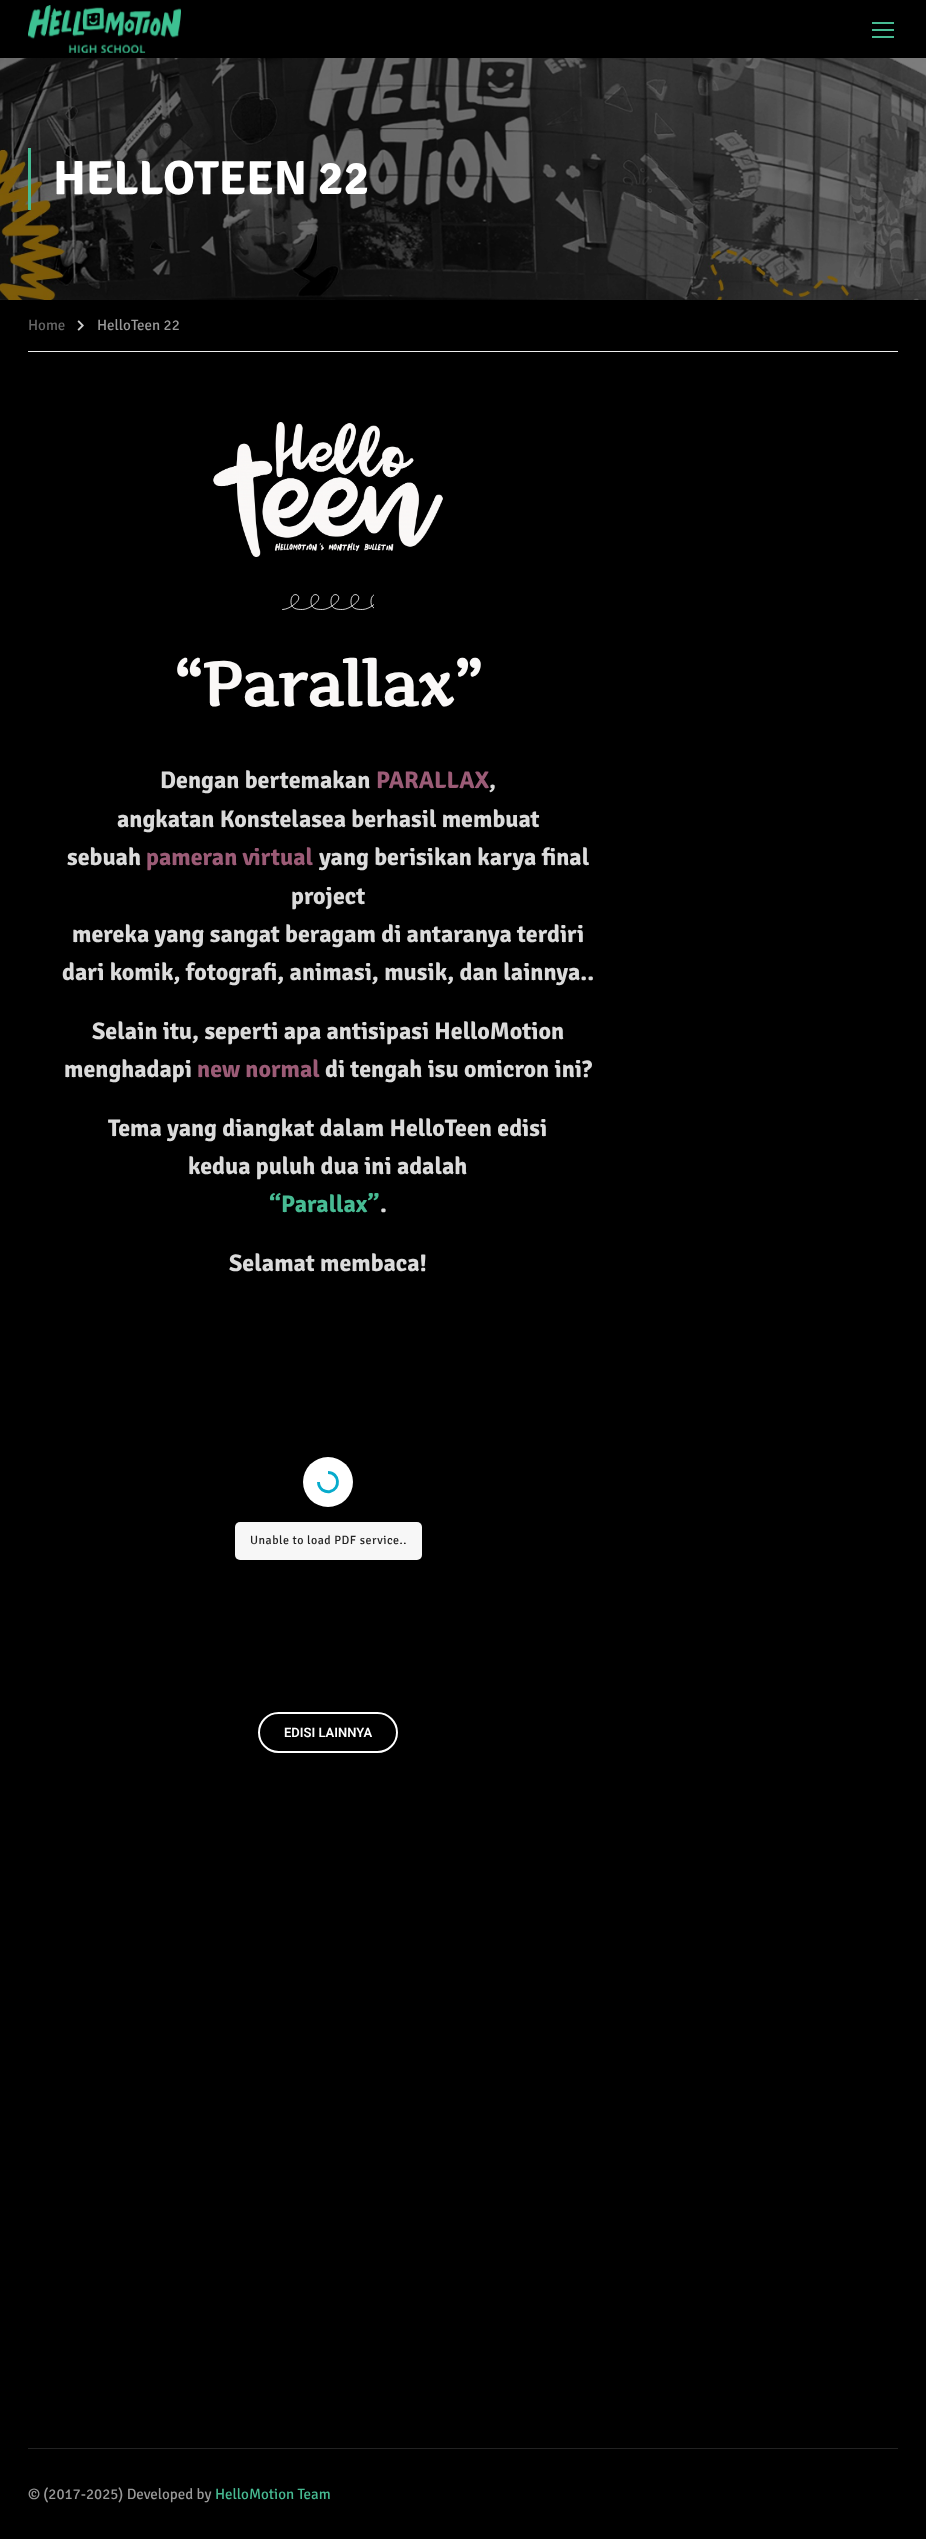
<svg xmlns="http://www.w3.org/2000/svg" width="926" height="2539">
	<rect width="100%" height="100%" fill="#000000" />
	<image x="28" y="5" width="153" height="48" href="assets/img1.png" />
	<rect x="872" y="22" width="22" height="2" fill="#47BB93" />
	<rect x="872" y="29" width="22" height="2" fill="#47BB93" />
	<rect x="872" y="36" width="22" height="2" fill="#47BB93" />
	<image x="0" y="58" width="926" height="242" href="assets/img2.png" />
	<rect x="28" y="148" width="3" height="62" fill="#47BB93" />
	<text x="53" y="194" font-family="Signika" font-size="48" font-weight="700" fill="#FFFFFF">HELLOTEEN 22</text>
	<rect x="28" y="351" width="870" height="1" fill="#EEEEEE" />
	<text x="28" y="330" font-family="Signika" font-size="15" fill="#666666">Home</text>
	<image x="77" y="320" width="7" height="11" href="assets/img3.png" />
	<text x="97" y="330" font-family="Signika" font-size="15" fill="#999999">HelloTeen 22</text>
	<image x="213" y="422" width="230" height="135" href="assets/img4.png" />
	<image x="282" y="594" width="92" height="16" href="assets/img5.png" />
	<text x="173" y="706" font-family="Artifika" font-size="62" font-weight="700" letter-spacing="-1" fill="#FAF8F7">“Parallax”</text>
	<text x="160" y="788" font-family="Signika" font-size="24" font-weight="700" fill="#DBDBDB">Dengan bertemakan</text>
	<text x="376" y="788" font-family="Signika" font-size="24" font-weight="700" fill="#9B5B76">PARALLAX</text>
	<g font-family="Signika" font-size="24" font-weight="700" fill="#DBDBDB">
		<text x="489" y="788">,</text>
		<text x="117" y="827">angkatan Konstelasea berhasil membuat</text>
		<text x="67" y="865">sebuah</text>
	</g>
	<text x="146" y="865" font-family="Signika" font-size="24" font-weight="700" fill="#9B5B76">pameran virtual</text>
	<g font-family="Signika" font-size="24" font-weight="700" fill="#DBDBDB">
		<text x="319" y="865">yang berisikan karya final</text>
		<text x="291" y="904">project</text>
		<text x="72" y="942">mereka yang sangat beragam di antaranya terdiri</text>
		<text x="62" y="980">dari komik, fotografi, animasi, musik, dan lainnya..</text>
		<text x="92" y="1039">Selain itu, seperti apa antisipasi HelloMotion</text>
		<text x="64" y="1077">menghadapi</text>
	</g>
	<text x="197" y="1077" font-family="Signika" font-size="24" font-weight="700" fill="#9B5B76">new normal</text>
	<g font-family="Signika" font-size="24" font-weight="700" fill="#DBDBDB">
		<text x="325" y="1077">di tengah isu omicron ini?</text>
		<text x="108" y="1136">Tema yang diangkat dalam HelloTeen edisi</text>
		<text x="188" y="1174">kedua puluh dua ini adalah</text>
	</g>
	<text x="269" y="1212" font-family="Signika" font-size="24" font-weight="700" fill="#47BB93">“Parallax”</text>
	<g font-family="Signika" font-size="24" font-weight="700" fill="#DBDBDB">
		<text x="380" y="1212">.</text>
		<text x="229" y="1271">Selamat membaca!</text>
	</g>
	<circle cx="328" cy="1482" r="25" fill="#FFFFFF" />
	<path d="M328 1472.5C339.5 1472.5 341 1489 330 1491.5C327.5 1492 325 1491.5 322.5 1490C320 1488 318.5 1485 318.5 1482" fill="none" stroke="#07ABCC" stroke-width="2.9" />
	<rect x="235" y="1522" width="187" height="38" rx="5" fill="#F7F7F7" />
	<text x="250" y="1544" font-family="Signika" font-size="12" letter-spacing="0.5" fill="#222222">Unable to load PDF service..</text>
	<rect x="259" y="1713" width="138" height="39" rx="19.5" fill="none" stroke="#FFFFFF" stroke-width="2" />
	<text x="284" y="1737" font-family="Roboto" font-size="13" font-weight="600" fill="#FFFFFF">EDISI LAINNYA</text>
	<rect x="28" y="2448" width="870" height="1" fill="#222222" />
	<text x="28" y="2499" font-family="Signika" font-size="15" fill="#999999">© (2017-2025) Developed by</text>
	<text x="215" y="2499" font-family="Signika" font-size="15" fill="#47BB93">HelloMotion Team</text>
</svg>
